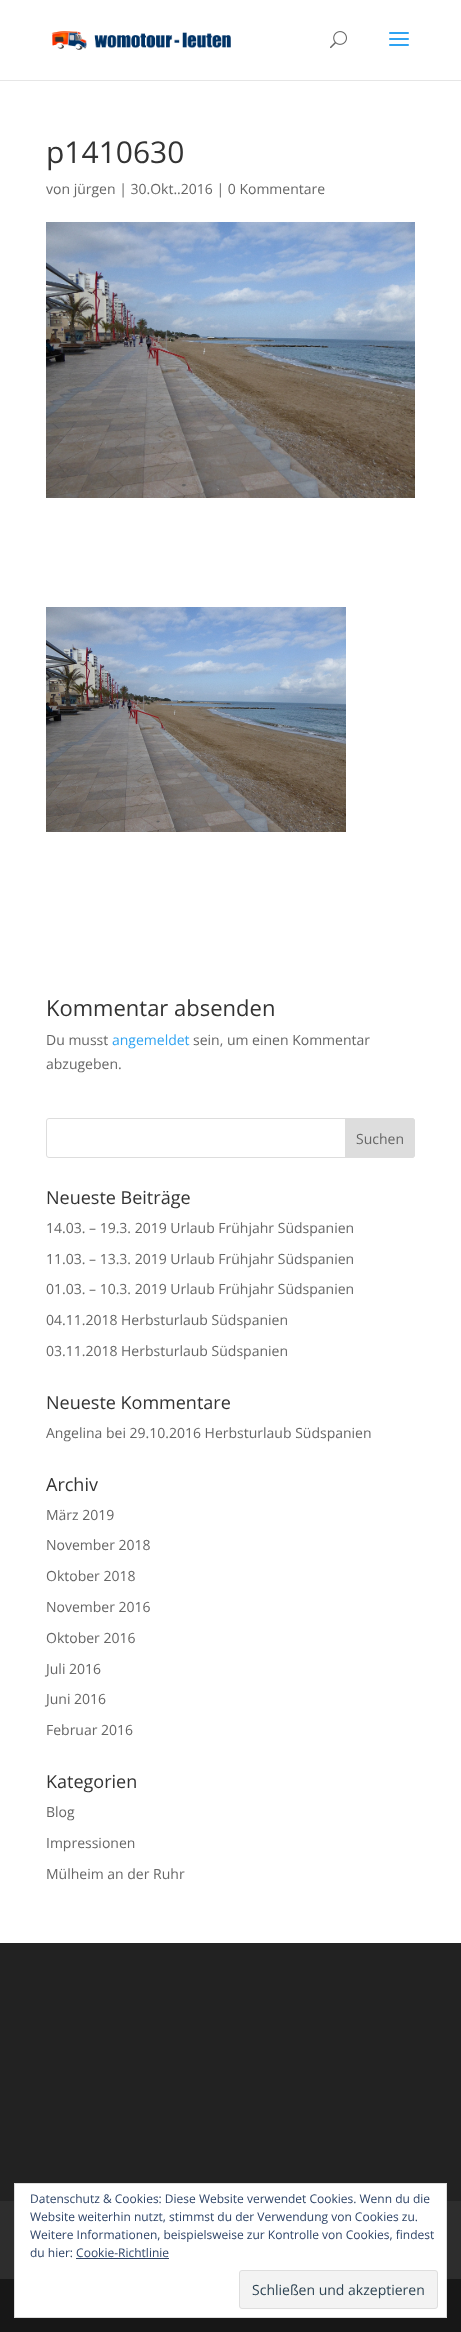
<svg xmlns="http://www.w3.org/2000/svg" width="461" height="2332">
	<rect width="100%" height="100%" fill="#FFFFFF" />
	<rect x="0" y="80" width="461" height="1" fill="#E6E6E6" />
	<image x="51" y="31" width="180" height="19" href="assets/img1.png" />
	<image x="330" y="31" width="17" height="18" href="assets/img2.png" />
	<image x="389" y="32" width="20" height="14" href="assets/img3.png" />
	<text x="46" y="163" font-family="Open Sans" font-size="30" fill="#333333">p1410630</text>
	<text x="46" y="194" font-family="Open Sans" font-size="14" fill="#666666">von jürgen | 30.Okt..2016 | 0 Kommentare</text>
	<image x="46" y="222" width="369" height="276" href="assets/img4.png" />
	<image x="46" y="607" width="300" height="225" href="assets/img5.png" />
	<text x="46" y="1016" font-family="Open Sans" font-size="22" fill="#333333">Kommentar absenden</text>
	<text x="46" y="1045" font-family="Open Sans" font-size="14" fill="#666666">Du musst</text>
	<text x="112" y="1045" font-family="Open Sans" font-size="14" fill="#2EA3F2">angemeldet</text>
	<g font-family="Open Sans" font-size="14" fill="#666666">
		<text x="193" y="1045">sein, um einen Kommentar</text>
		<text x="46" y="1069">abzugeben.</text>
	</g>
	<rect x="46.5" y="1118.5" width="368" height="39" rx="2.5" fill="none" stroke="#DDDDDD" />
	<path d="M345.5 1118.5H412C413.5 1118.5 414.5 1119.5 414.5 1121V1155C414.5 1156.5 413.5 1157.5 412 1157.5H345.5Z" fill="#DDDDDD" stroke="#DDDDDD" />
	<text x="356" y="1144" font-family="Open Sans" font-size="14" fill="#666666">Suchen</text>
	<text x="46" y="1204" font-family="Open Sans" font-size="18" fill="#333333">Neueste Beiträge</text>
	<g font-family="Open Sans" font-size="14" fill="#666666">
		<text x="46" y="1233">14.03. – 19.3. 2019 Urlaub Frühjahr Südspanien</text>
		<text x="46" y="1264">11.03. – 13.3. 2019 Urlaub Frühjahr Südspanien</text>
		<text x="46" y="1294">01.03. – 10.3. 2019 Urlaub Frühjahr Südspanien</text>
		<text x="46" y="1325">04.11.2018 Herbsturlaub Südspanien</text>
		<text x="46" y="1356">03.11.2018 Herbsturlaub Südspanien</text>
	</g>
	<text x="46" y="1409" font-family="Open Sans" font-size="18" fill="#333333">Neueste Kommentare</text>
	<text x="46" y="1438" font-family="Open Sans" font-size="14" fill="#666666">Angelina bei 29.10.2016 Herbsturlaub Südspanien</text>
	<text x="46" y="1491" font-family="Open Sans" font-size="18" fill="#333333">Archiv</text>
	<g font-family="Open Sans" font-size="14" fill="#666666">
		<text x="46" y="1520">März 2019</text>
		<text x="46" y="1550">November 2018</text>
		<text x="46" y="1581">Oktober 2018</text>
		<text x="46" y="1612">November 2016</text>
		<text x="46" y="1643">Oktober 2016</text>
		<text x="46" y="1674">Juli 2016</text>
		<text x="46" y="1704">Juni 2016</text>
		<text x="46" y="1735">Februar 2016</text>
	</g>
	<text x="46" y="1788" font-family="Open Sans" font-size="18" fill="#333333">Kategorien</text>
	<g font-family="Open Sans" font-size="14" fill="#666666">
		<text x="46" y="1817">Blog</text>
		<text x="46" y="1848">Impressionen</text>
		<text x="46" y="1879">Mülheim an der Ruhr</text>
	</g>
	<rect x="0" y="1943" width="461" height="258" fill="#222222" />
	<rect x="0" y="2201" width="461" height="78" fill="#2D2D2D" />
	<rect x="0" y="2279" width="461" height="53" fill="#171717" />
	<rect x="14.5" y="2183.5" width="432" height="134" fill="#FFFFFF" stroke="#DEDEDE" />
	<g font-family="Open Sans" font-size="12" fill="#2E4467">
		<text x="30" y="2203">Datenschutz &amp; Cookies: Diese Website verwendet Cookies. Wenn du die</text>
		<text x="30" y="2221">Website weiterhin nutzt, stimmst du der Verwendung von Cookies zu.</text>
		<text x="30" y="2239">Weitere Informationen, beispielsweise zur Kontrolle von Cookies, findest</text>
		<text x="30" y="2257">du hier: Cookie-Richtlinie</text>
	</g>
	<rect x="76" y="2258" width="93" height="1" fill="#2E4467" />
	<rect x="239.5" y="2270.5" width="198" height="38" rx="2.5" fill="#F3F3F3" stroke="#DEDEDE" />
	<text x="252" y="2295" font-family="Open Sans" font-size="14" fill="#2E4453">Schließen und akzeptieren</text>
</svg>
